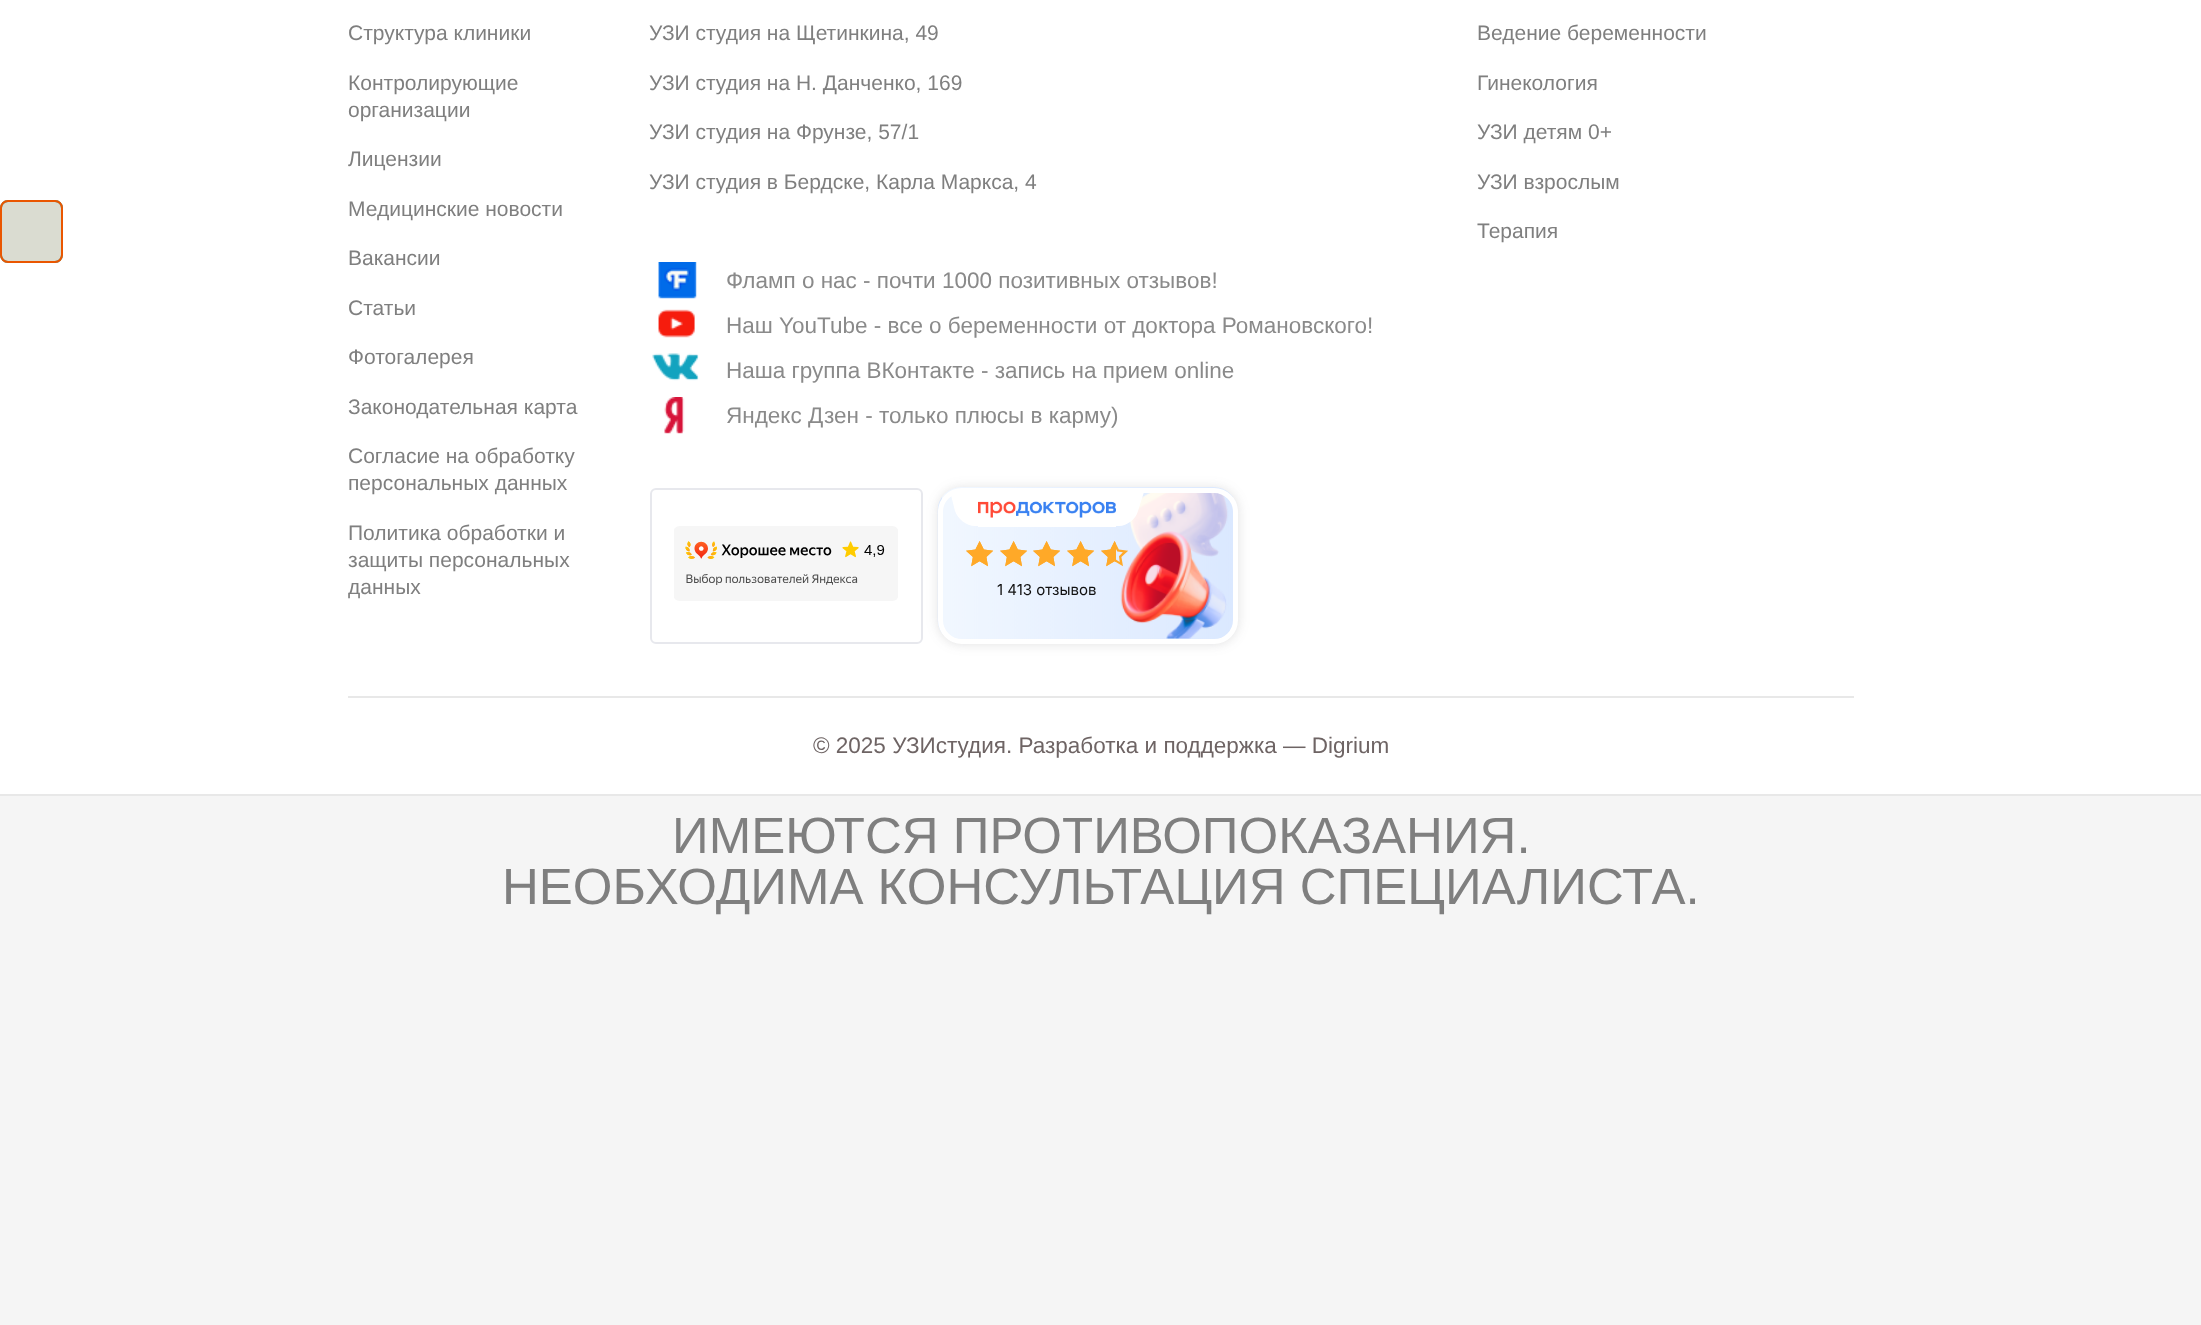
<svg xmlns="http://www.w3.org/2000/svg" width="2201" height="1325">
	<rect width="100%" height="100%" fill="#F5F5F5" />
	<rect x="0" y="0" width="2201" height="794" fill="#FFFFFF" />
	<rect x="1" y="201" width="61" height="61" rx="7" fill="#D9EBE9" stroke="#409990" stroke-width="2" />
	<rect x="0" y="794" width="2201" height="2" fill="#E8E8E8" />
	<g font-family="Liberation Sans" font-size="21" fill="#7F7F7F">
		<text x="348" y="40">Структура клиники</text>
		<text x="348" y="90">Контролирующие</text>
		<text x="348" y="117">организации</text>
		<text x="348" y="166">Лицензии</text>
		<text x="348" y="216">Медицинские новости</text>
		<text x="348" y="265">Вакансии</text>
		<text x="348" y="315">Статьи</text>
		<text x="348" y="364">Фотогалерея</text>
		<text x="348" y="414">Законодательная карта</text>
		<text x="348" y="463">Согласие на обработку</text>
		<text x="348" y="490">персональных данных</text>
		<text x="348" y="540">Политика обработки и</text>
		<text x="348" y="567">защиты персональных</text>
		<text x="348" y="594">данных</text>
		<text x="649" y="40">УЗИ студия на Щетинкина, 49</text>
		<text x="649" y="90">УЗИ студия на Н. Данченко, 169</text>
		<text x="649" y="139">УЗИ студия на Фрунзе, 57/1</text>
		<text x="649" y="189">УЗИ студия в Бердске, Карла Маркса, 4</text>
	</g>
	<image x="658" y="262" width="39" height="37" href="assets/img1.png" />
	<text x="726" y="288" font-family="Liberation Sans" font-size="22.5" fill="#8A8A8A">Фламп о нас - почти 1000 позитивных отзывов!</text>
	<image x="658" y="309" width="37" height="29" href="assets/img2.png" />
	<g font-family="Liberation Sans" font-size="22.5" fill="#8A8A8A">
		<text x="726" y="333">Наш YouTube - все</text>
		<text x="929" y="333">о беременности от доктора Романовского!</text>
	</g>
	<image x="652" y="353" width="47" height="28" href="assets/img3.png" />
	<text x="726" y="378" font-family="Liberation Sans" font-size="22.5" fill="#8A8A8A">Наша группа ВКонтакте - запись на прием online</text>
	<image x="664" y="397" width="21" height="37" href="assets/img4.png" />
	<text x="726" y="423" font-family="Liberation Sans" font-size="22.5" fill="#8A8A8A">Яндекс Дзен - только плюсы в карму)</text>
	<rect x="651" y="489" width="271" height="154" rx="5" fill="none" stroke="#E7E8ED" stroke-width="2" />
	<image x="674" y="526" width="224" height="75" href="assets/img5.png" />
	<rect x="938" y="488" width="300" height="156" rx="24" fill="#4B4E52" fill-opacity="0.18" filter="blur(6px)" />
	<image x="937" y="487" width="300" height="155" href="assets/img6.png" />
	<rect x="940.5" y="490.5" width="295" height="151" rx="21.5" fill="none" stroke="#FFFFFF" stroke-width="5" />
	<rect x="978" y="526" width="138" height="1" fill="#FFFFFF" />
	<path d="M962 492C958 492 954 493 951 495L955 511C958 519 966 526 975 526H1093C1101 526 1106 519 1103 511L1098 492Z" fill="#FFFFFF" />
	<path d="M996 492H1144L1138 511C1136 519 1127 526 1119 526H1001C993 526 988 519 990 511Z" fill="#FFFFFF" />
	<image x="978" y="501" width="138" height="17" href="assets/img7.png" />
	<image x="966" y="541" width="162" height="26" href="assets/img8.png" />
	<image x="966" y="541" width="150" height="26" href="assets/img9.png" />
	<text x="997" y="595" font-family="Inter" font-size="15" fill="#111111">1 413 отзывов</text>
	<g font-family="Liberation Sans" font-size="21" fill="#7F7F7F">
		<text x="1477" y="40">Ведение беременности</text>
		<text x="1477" y="90">Гинекология</text>
		<text x="1477" y="139">УЗИ детям 0+</text>
		<text x="1477" y="189">УЗИ взрослым</text>
		<text x="1477" y="238">Терапия</text>
	</g>
	<rect x="348" y="696" width="1506" height="2" fill="#E8E8E8" />
	<text x="813" y="753" font-family="Liberation Sans" font-size="22.5" fill="#6E6464">© 2025 УЗИстудия. Разработка и поддержка — Digrium</text>
	<g font-family="Liberation Sans" font-size="51" fill="#7F7F7F">
		<text x="672" y="853">ИМЕЮТСЯ ПРОТИВОПОКАЗАНИЯ.</text>
		<text x="502" y="904">НЕОБХОДИМА КОНСУЛЬТАЦИЯ СПЕЦИАЛИСТА.</text>
	</g>
	<rect x="1" y="201" width="61" height="61" rx="7" fill="#EA5600" fill-opacity="0.1" stroke="#EA5600" stroke-width="2" />
</svg>
